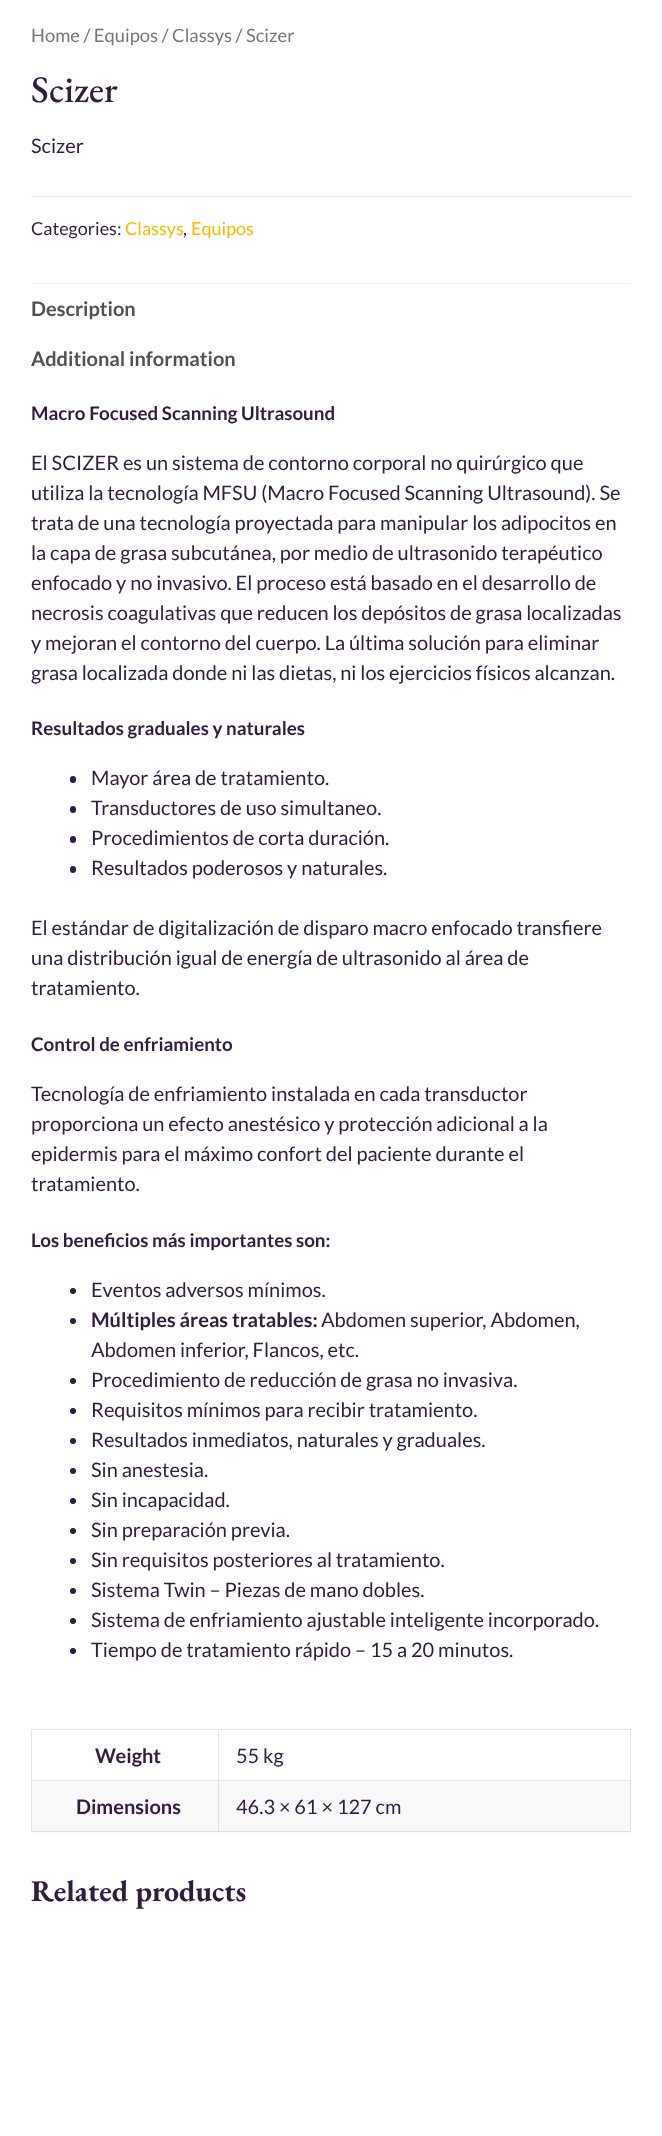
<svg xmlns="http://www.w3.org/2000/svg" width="662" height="2136">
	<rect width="100%" height="100%" fill="#FFFFFF" />
	<text x="31" y="42" font-family="Lato" font-size="18.4" fill="#777777">Home / Equipos / Classys / Scizer</text>
	<text x="31" y="102" font-family="EB Garamond" font-size="37.5" font-weight="500" fill="#311D3D">Scizer</text>
	<text x="31" y="153" font-family="Lato" font-size="20" fill="#311D3D">Scizer</text>
	<rect x="31" y="196" width="600" height="1" fill="#EBEBEB" />
	<text x="31" y="235" font-family="Lato" font-size="18" fill="#311D3D">Categories:</text>
	<text x="125" y="235" font-family="Lato" font-size="18" fill="#FFBA00">Classys</text>
	<text x="183" y="235" font-family="Lato" font-size="18" fill="#311D3D">,</text>
	<text x="191" y="235" font-family="Lato" font-size="18" fill="#FFBA00">Equipos</text>
	<rect x="31" y="283" width="600" height="1" fill="#F2F2F2" />
	<g font-family="Lato" font-size="20" font-weight="700" fill="#515151">
		<text x="31" y="316">Description</text>
		<text x="31" y="366">Additional information</text>
	</g>
	<text x="31" y="420" font-family="Lato" font-size="18.75" font-weight="700" fill="#311D3D">Macro Focused Scanning Ultrasound</text>
	<g font-family="Lato" font-size="20" fill="#311D3D">
		<text x="31" y="470">El SCIZER es un sistema de contorno corporal no quirúrgico que</text>
		<text x="31" y="500">utiliza la tecnología MFSU (Macro Focused Scanning Ultrasound). Se</text>
		<text x="31" y="530">trata de una tecnología proyectada para manipular los adipocitos en</text>
		<text x="31" y="560">la capa de grasa subcutánea, por medio de ultrasonido terapéutico</text>
		<text x="31" y="590">enfocado y no invasivo. El proceso está basado en el desarrollo de</text>
		<text x="31" y="620">necrosis coagulativas que reducen los depósitos de grasa localizadas</text>
		<text x="31" y="650">y mejoran el contorno del cuerpo. La última solución para eliminar</text>
		<text x="31" y="680">grasa localizada donde ni las dietas, ni los ejercicios físicos alcanzan.</text>
	</g>
	<text x="31" y="735" font-family="Lato" font-size="18.75" font-weight="700" fill="#311D3D">Resultados graduales y naturales</text>
	<rect x="70" y="776" width="6" height="7" rx="3" fill="#311D3D" />
	<text x="91" y="785" font-family="Lato" font-size="20" fill="#311D3D">Mayor área de tratamiento.</text>
	<rect x="70" y="806" width="6" height="7" rx="3" fill="#311D3D" />
	<text x="91" y="815" font-family="Lato" font-size="20" fill="#311D3D">Transductores de uso simultaneo.</text>
	<rect x="70" y="836" width="6" height="7" rx="3" fill="#311D3D" />
	<text x="91" y="845" font-family="Lato" font-size="20" fill="#311D3D">Procedimientos de corta duración.</text>
	<rect x="70" y="866" width="6" height="7" rx="3" fill="#311D3D" />
	<g font-family="Lato" font-size="20" fill="#311D3D">
		<text x="91" y="875">Resultados poderosos y naturales.</text>
		<text x="31" y="935">El estándar de digitalización de disparo macro enfocado transfiere</text>
		<text x="31" y="965">una distribución igual de energía de ultrasonido al área de</text>
		<text x="31" y="995">tratamiento.</text>
	</g>
	<text x="31" y="1051" font-family="Lato" font-size="18.75" font-weight="700" fill="#311D3D">Control de enfriamiento</text>
	<g font-family="Lato" font-size="20" fill="#311D3D">
		<text x="31" y="1101">Tecnología de enfriamiento instalada en cada transductor</text>
		<text x="31" y="1131">proporciona un efecto anestésico y protección adicional a la</text>
		<text x="31" y="1161">epidermis para el máximo confort del paciente durante el</text>
		<text x="31" y="1191">tratamiento.</text>
	</g>
	<text x="31" y="1247" font-family="Lato" font-size="18.75" font-weight="700" fill="#311D3D">Los beneficios más importantes son:</text>
	<circle cx="73" cy="1291" r="3" fill="#311D3D" />
	<text x="91" y="1297" font-family="Lato" font-size="20" fill="#311D3D">Eventos adversos mínimos.</text>
	<circle cx="73" cy="1321" r="3" fill="#311D3D" />
	<text x="91" y="1327" font-family="Lato" font-size="20" font-weight="700" fill="#311D3D">Múltiples áreas tratables:</text>
	<g font-family="Lato" font-size="20" fill="#311D3D">
		<text x="321" y="1327">Abdomen superior, Abdomen,</text>
		<text x="91" y="1357">Abdomen inferior, Flancos, etc.</text>
	</g>
	<circle cx="73" cy="1381" r="3" fill="#311D3D" />
	<text x="91" y="1387" font-family="Lato" font-size="20" fill="#311D3D">Procedimiento de reducción de grasa no invasiva.</text>
	<circle cx="73" cy="1411" r="3" fill="#311D3D" />
	<text x="91" y="1417" font-family="Lato" font-size="20" fill="#311D3D">Requisitos mínimos para recibir tratamiento.</text>
	<circle cx="73" cy="1441" r="3" fill="#311D3D" />
	<text x="91" y="1447" font-family="Lato" font-size="20" fill="#311D3D">Resultados inmediatos, naturales y graduales.</text>
	<circle cx="73" cy="1471" r="3" fill="#311D3D" />
	<text x="91" y="1477" font-family="Lato" font-size="20" fill="#311D3D">Sin anestesia.</text>
	<circle cx="73" cy="1501" r="3" fill="#311D3D" />
	<text x="91" y="1507" font-family="Lato" font-size="20" fill="#311D3D">Sin incapacidad.</text>
	<circle cx="73" cy="1531" r="3" fill="#311D3D" />
	<text x="91" y="1537" font-family="Lato" font-size="20" fill="#311D3D">Sin preparación previa.</text>
	<circle cx="73" cy="1561" r="3" fill="#311D3D" />
	<text x="91" y="1567" font-family="Lato" font-size="20" fill="#311D3D">Sin requisitos posteriores al tratamiento.</text>
	<circle cx="73" cy="1591" r="3" fill="#311D3D" />
	<text x="91" y="1597" font-family="Lato" font-size="20" fill="#311D3D">Sistema Twin – Piezas de mano dobles.</text>
	<circle cx="73" cy="1621" r="3" fill="#311D3D" />
	<text x="91" y="1627" font-family="Lato" font-size="20" fill="#311D3D">Sistema de enfriamiento ajustable inteligente incorporado.</text>
	<circle cx="73" cy="1651" r="3" fill="#311D3D" />
	<text x="91" y="1657" font-family="Lato" font-size="20" fill="#311D3D">Tiempo de tratamiento rápido – 15 a 20 minutos.</text>
	<rect x="31" y="1729" width="600" height="1" fill="#E6E6E6" />
	<path d="M219 1730V1781L218 1780V1730Z" fill="#E6E6E6" />
	<path d="M219 1781H31L32 1780H218Z" fill="#000000" fill-opacity="0.1" />
	<path d="M31 1781V1730H32V1780Z" fill="#000000" fill-opacity="0.1" />
	<text x="95" y="1763" font-family="Lato" font-size="20" font-weight="700" fill="#311D3D">Weight</text>
	<path d="M631 1730V1781L630 1780V1730Z" fill="#E6E6E6" />
	<path d="M631 1781H219V1780H630Z" fill="#000000" fill-opacity="0.1" />
	<text x="236" y="1763" font-family="Lato" font-size="20" fill="#311D3D">55 kg</text>
	<rect x="31" y="1781" width="600" height="52" fill="#F9F9F9" />
	<path d="M219 1781V1832L218 1831V1781Z" fill="#E0E0E0" />
	<path d="M219 1832H31L32 1831H218Z" fill="#000000" fill-opacity="0.1" />
	<path d="M31 1832V1781H32V1831Z" fill="#000000" fill-opacity="0.1" />
	<text x="76" y="1814" font-family="Lato" font-size="20" font-weight="700" fill="#311D3D">Dimensions</text>
	<path d="M631 1781V1832L630 1831V1781Z" fill="#E0E0E0" />
	<path d="M631 1832H219V1831H630Z" fill="#000000" fill-opacity="0.1" />
	<text x="236" y="1814" font-family="Lato" font-size="20" fill="#311D3D">46.3 × 61 × 127 cm</text>
	<text x="31" y="1901" font-family="EB Garamond" font-size="30" font-weight="700" fill="#311D3D">Related products</text>
</svg>
